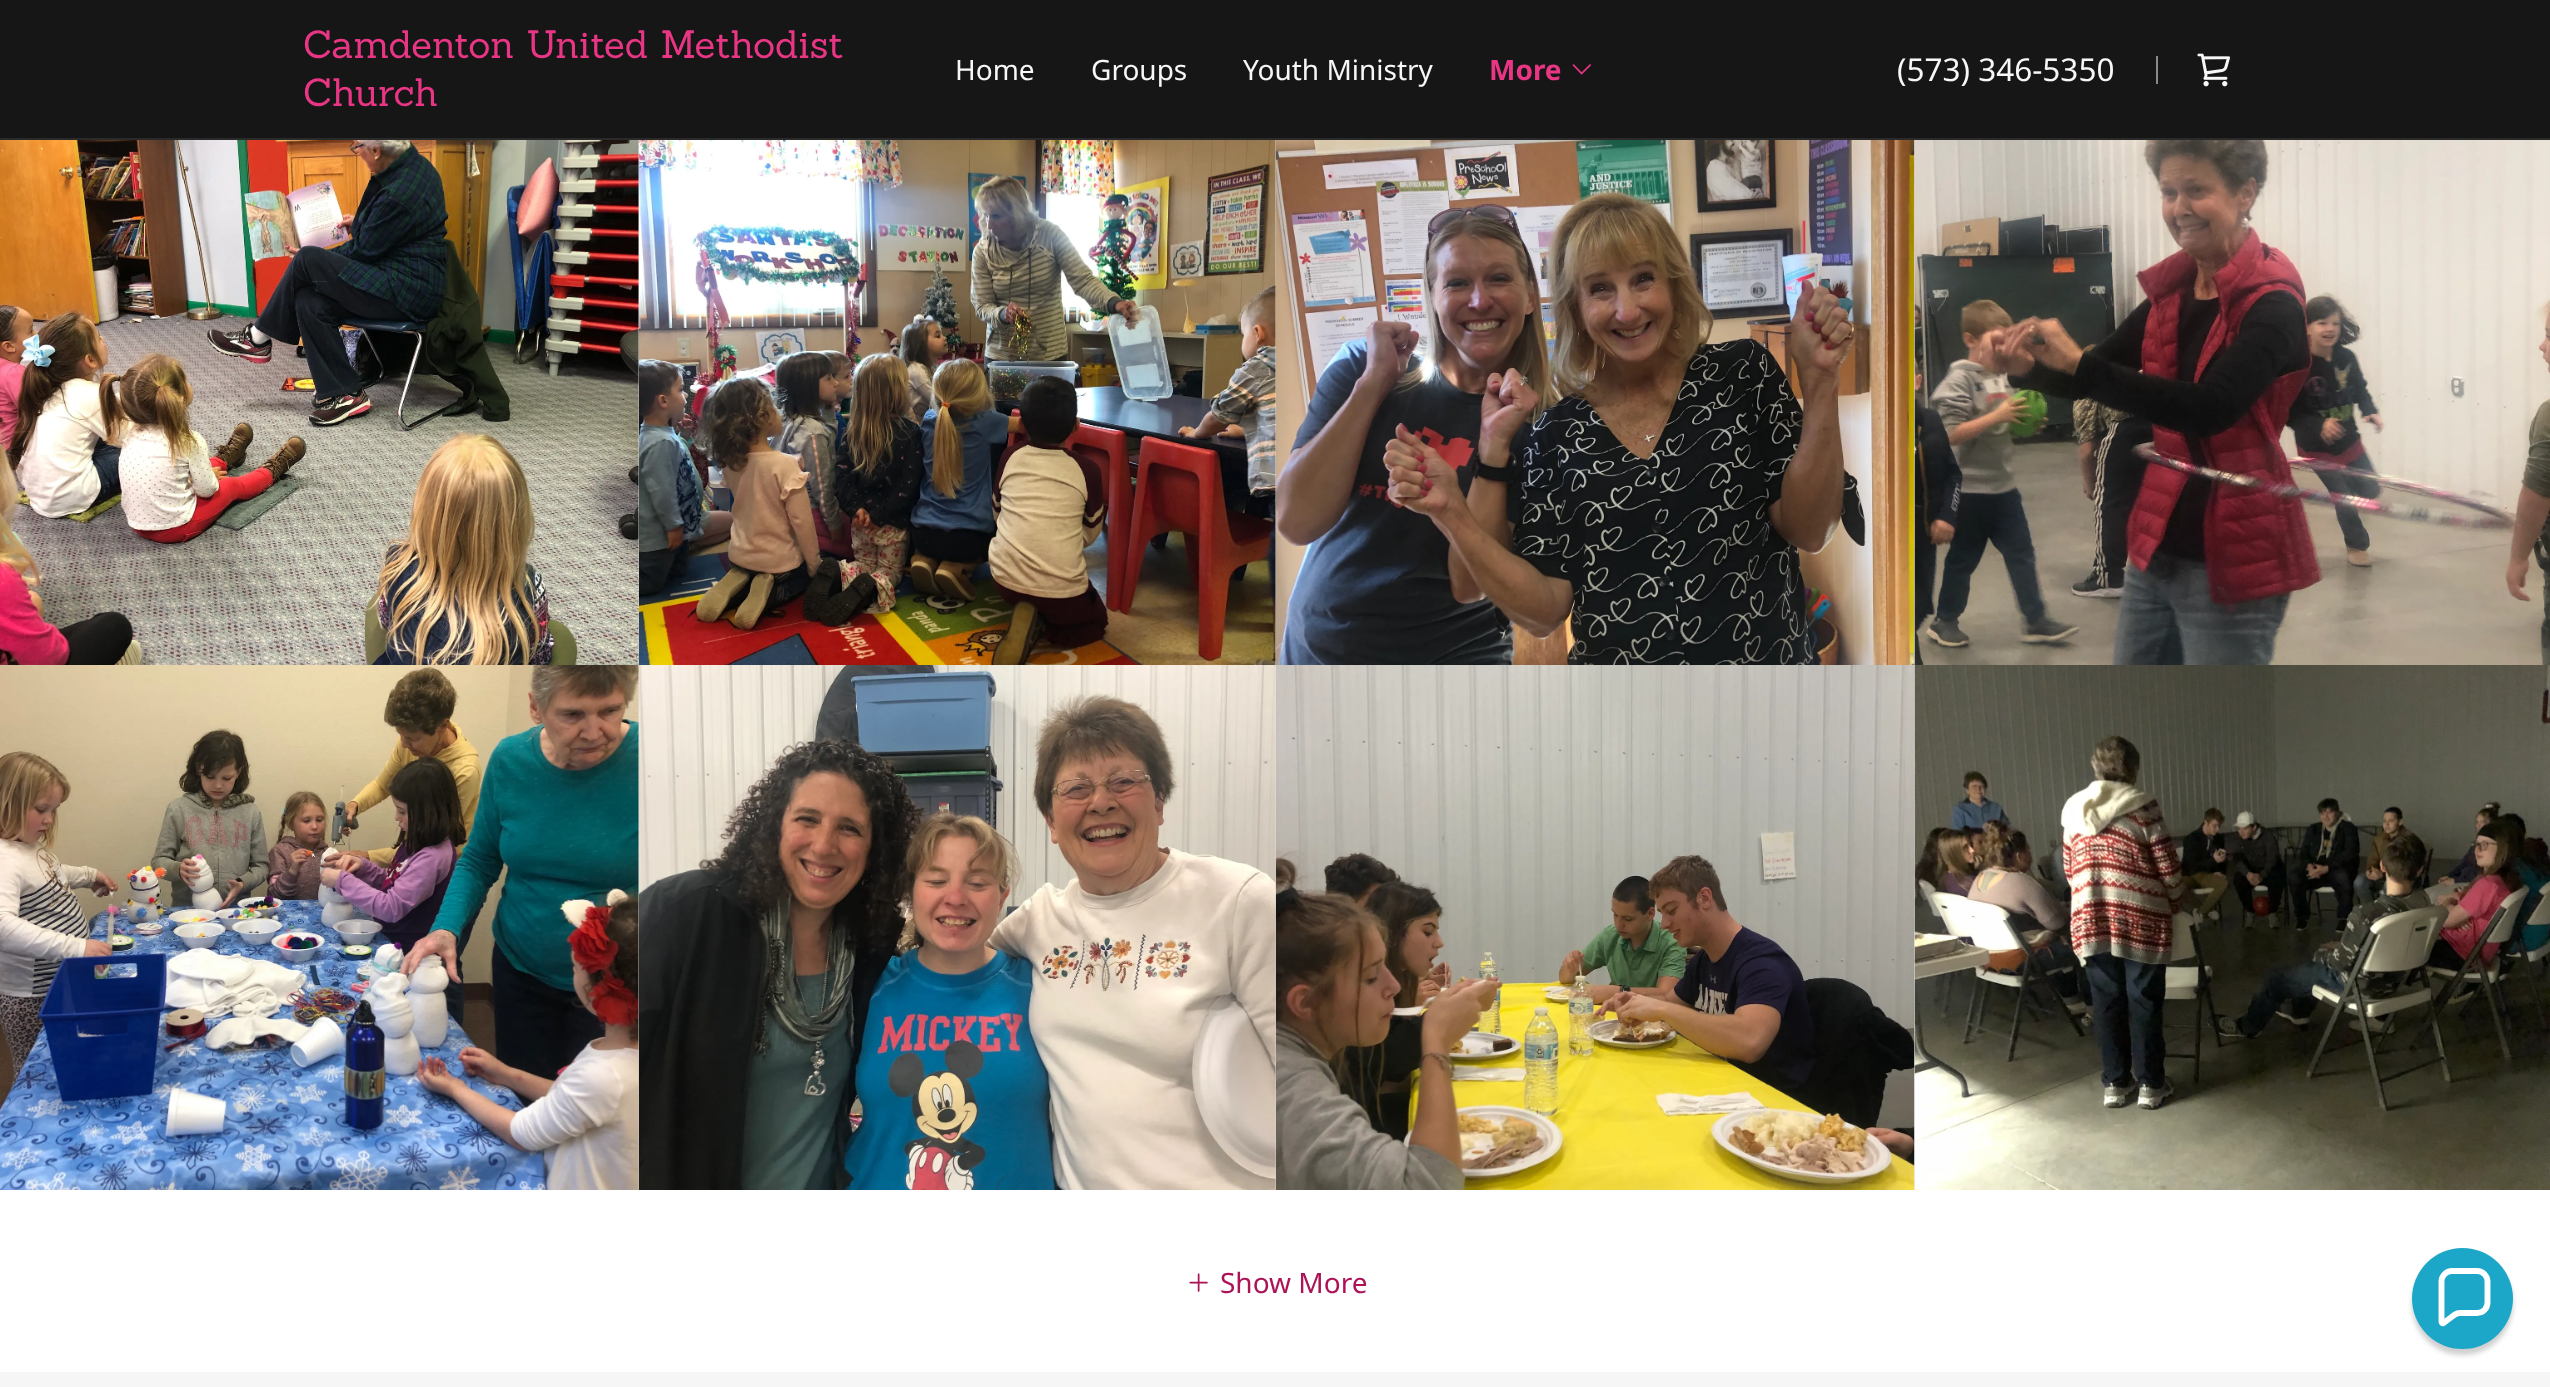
<svg xmlns="http://www.w3.org/2000/svg" width="2550" height="1387">
	<rect width="100%" height="100%" fill="#161616" />
	<g font-family="Sanchez" font-size="38.5" fill="#E83584">
		<text x="303" y="58">Camdenton United Methodist</text>
		<text x="303" y="106">Church</text>
	</g>
	<g font-family="Noto Sans" font-size="28" fill="#F7F7F7">
		<text x="955" y="80">Home</text>
		<text x="1091" y="80">Groups</text>
		<text x="1243" y="80">Youth Ministry</text>
	</g>
	<text x="1489" y="80" font-family="Noto Sans" font-size="28" font-weight="700" fill="#E83584">More</text>
	<image x="1572" y="64" width="19" height="11" href="assets/img1.png" />
	<text x="1897" y="81" font-family="Noto Sans" font-size="31.5" fill="#F7F7F7">(573) 346-5350</text>
	<rect x="2156" y="56" width="2" height="28" fill="#898989" />
	<image x="2197" y="53" width="34" height="34" href="assets/img2.png" />
	<rect x="0" y="138" width="2550" height="2" fill="#2A2A2A" />
	<rect x="0" y="1190" width="2550" height="182" fill="#FFFFFF" />
	<rect x="638" y="140" width="1" height="1050" fill="#E6E6E6" />
	<image x="0" y="140" width="639" height="525" href="assets/img3.png" />
	<rect x="1275" y="140" width="1" height="1050" fill="#E6E6E6" />
	<image x="638" y="140" width="638" height="525" href="assets/img4.png" />
	<rect x="1914" y="140" width="1" height="1050" fill="#E6E6E6" />
	<image x="1275" y="140" width="640" height="525" href="assets/img5.png" />
	<image x="1914" y="140" width="636" height="525" href="assets/img6.png" />
	<image x="0" y="665" width="639" height="525" href="assets/img7.png" />
	<image x="638" y="665" width="638" height="525" href="assets/img8.png" />
	<image x="1275" y="665" width="640" height="525" href="assets/img9.png" />
	<image x="1914" y="665" width="636" height="525" href="assets/img10.png" />
	<image x="1189" y="1273" width="19" height="19" href="assets/img11.png" />
	<text x="1220" y="1293" font-family="Noto Sans" font-size="28" fill="#AD1457">Show More</text>
	<rect x="0" y="1372" width="2550" height="15" fill="#F6F6F6" />
	<rect x="2412" y="1253" width="101" height="102" rx="50.5" fill="#0D0D0D" fill-opacity="0.2" filter="blur(2.5px)" />
	<circle cx="2462.5" cy="1298.5" r="50.5" fill="#1CA6C8" />
	<path d="M2477 1271H2452C2446 1271 2441.5 1276 2441.5 1281.5V1322C2441.5 1323 2442.5 1323.5 2443.5 1323L2455 1314.5C2456.5 1313.5 2458 1313 2460 1313H2477C2483 1313 2487.5 1308.5 2487.5 1302.5V1281.5C2487.5 1276 2483 1271 2477 1271Z" fill="none" stroke="#FFFFFF" stroke-width="5.9" />
</svg>
